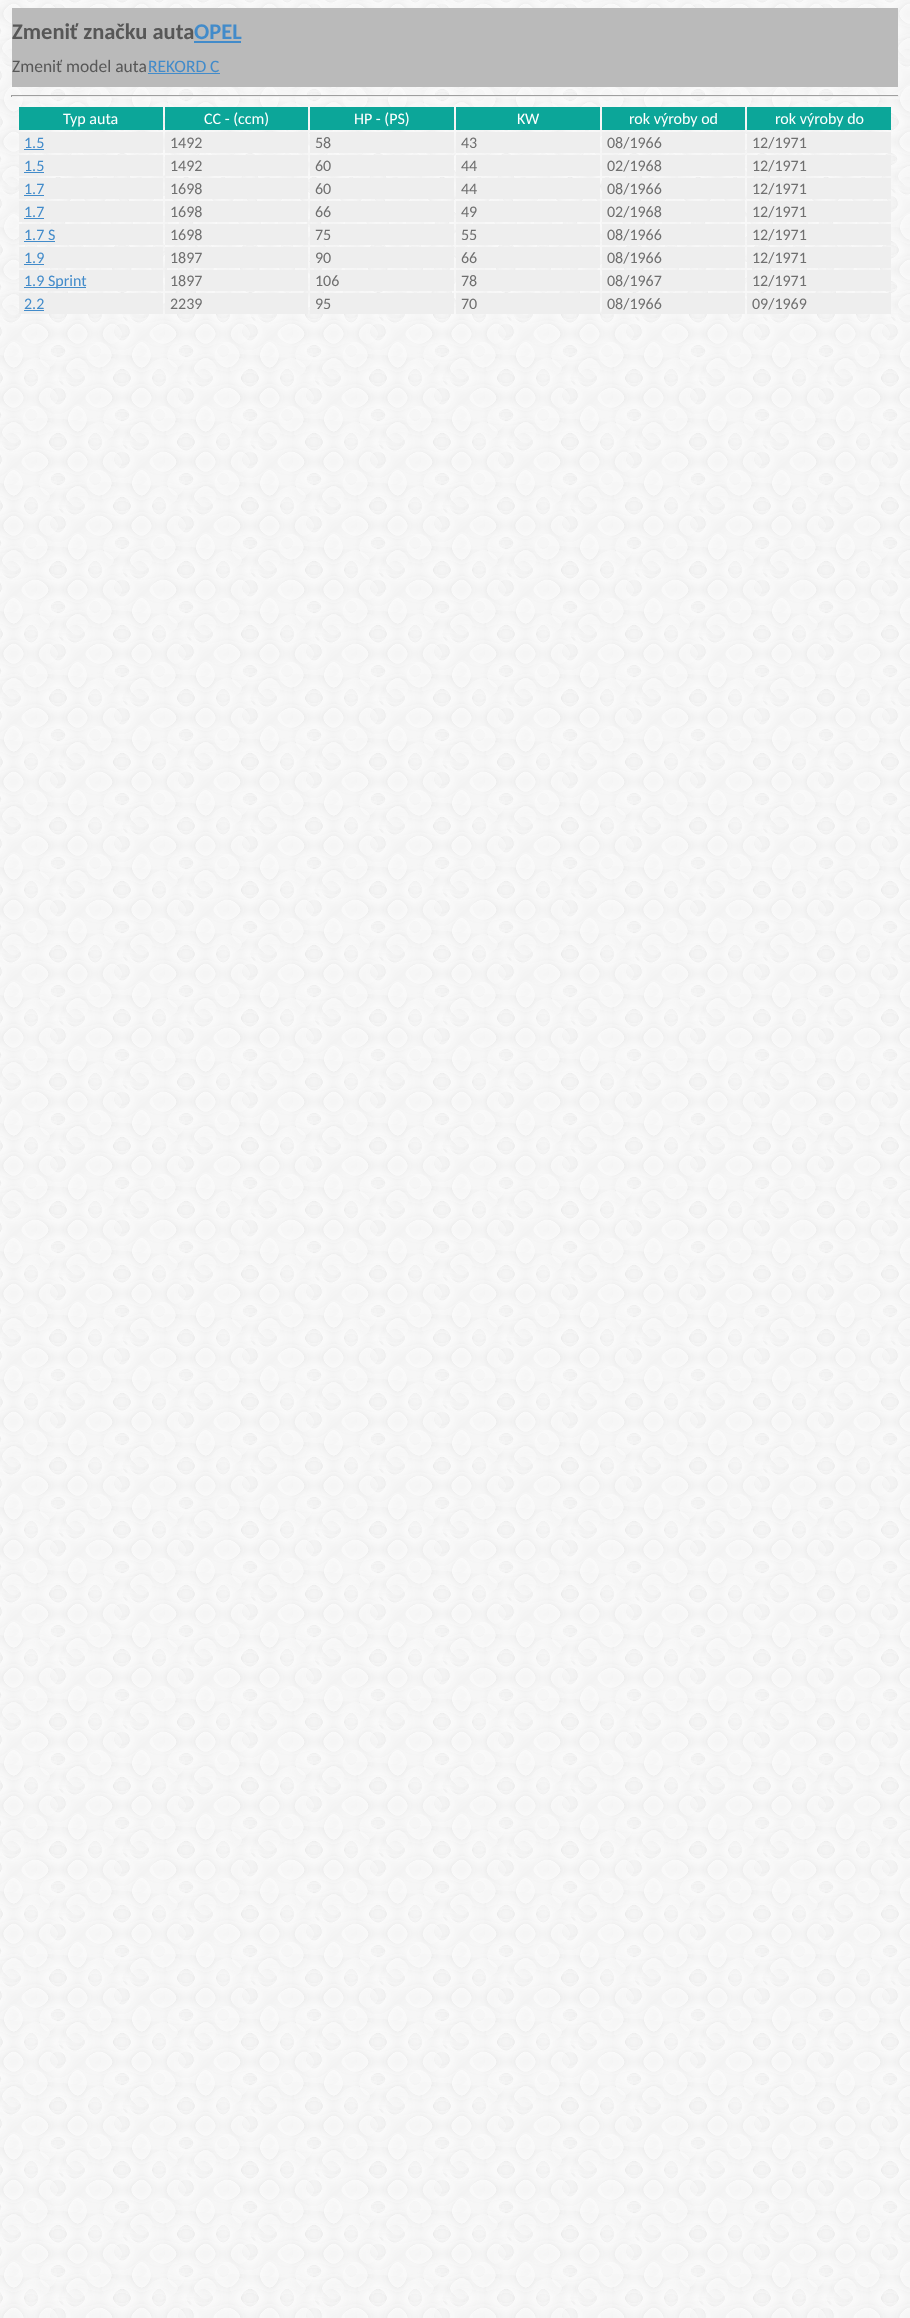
<svg xmlns="http://www.w3.org/2000/svg" width="910" height="2318">
	<rect width="100%" height="100%" fill="#FFFFFF" />
	<image x="0" y="0" width="910" height="2318" href="assets/img1.png" />
	<rect x="12" y="8" width="886" height="79" fill="#BABABA" />
	<text x="12" y="39" font-family="Carlito" font-size="22.5" font-weight="700" fill="#575757">Zmeniť značku auta</text>
	<text x="194" y="39" font-family="Carlito" font-size="22.5" font-weight="700" fill="#428BCA">OPEL</text>
	<rect x="194" y="41" width="47" height="2" fill="#428BCA" />
	<text x="12" y="72" font-family="Carlito" font-size="17.5" fill="#575757">Zmeniť model auta</text>
	<text x="148" y="72" font-family="Carlito" font-size="17.5" fill="#428BCA">REKORD C</text>
	<rect x="148" y="73" width="72" height="1" fill="#428BCA" />
	<rect x="11" y="95" width="888" height="1" fill="#9F9F9F" />
	<rect x="898" y="95" width="1" height="2" fill="#EEEEEE" />
	<rect x="11" y="96" width="888" height="1" fill="#EEEEEE" />
	<rect x="11" y="95" width="1" height="2" fill="#9F9F9F" />
	<rect x="19" y="107" width="144" height="23" fill="#0CA699" />
	<text x="63" y="124" font-family="Carlito" font-size="16" fill="#FFFFFF">Typ auta</text>
	<rect x="165" y="107" width="143" height="23" fill="#0CA699" />
	<text x="204" y="124" font-family="Carlito" font-size="16" fill="#FFFFFF">CC - (ccm)</text>
	<rect x="310" y="107" width="144" height="23" fill="#0CA699" />
	<text x="354" y="124" font-family="Carlito" font-size="16" fill="#FFFFFF">HP - (PS)</text>
	<rect x="456" y="107" width="144" height="23" fill="#0CA699" />
	<text x="517" y="124" font-family="Carlito" font-size="16" fill="#FFFFFF">KW</text>
	<rect x="602" y="107" width="143" height="23" fill="#0CA699" />
	<text x="629" y="124" font-family="Carlito" font-size="16" fill="#FFFFFF">rok výroby od</text>
	<rect x="747" y="107" width="144" height="23" fill="#0CA699" />
	<text x="775" y="124" font-family="Carlito" font-size="16" fill="#FFFFFF">rok výroby do</text>
	<rect x="19" y="132" width="144" height="21" fill="#EEEEEE" />
	<text x="24" y="148" font-family="Carlito" font-size="16" fill="#428BCA">1.5</text>
	<rect x="24" y="149" width="20" height="1" fill="#428BCA" />
	<rect x="165" y="132" width="143" height="21" fill="#EEEEEE" />
	<text x="170" y="148" font-family="Carlito" font-size="16" fill="#6F6F6F">1492</text>
	<rect x="310" y="132" width="144" height="21" fill="#EEEEEE" />
	<text x="315" y="148" font-family="Carlito" font-size="16" fill="#6F6F6F">58</text>
	<rect x="456" y="132" width="144" height="21" fill="#EEEEEE" />
	<text x="461" y="148" font-family="Carlito" font-size="16" fill="#6F6F6F">43</text>
	<rect x="602" y="132" width="143" height="21" fill="#EEEEEE" />
	<text x="607" y="148" font-family="Carlito" font-size="16" fill="#6F6F6F">08/1966</text>
	<rect x="747" y="132" width="144" height="21" fill="#EEEEEE" />
	<text x="752" y="148" font-family="Carlito" font-size="16" fill="#6F6F6F">12/1971</text>
	<rect x="19" y="155" width="144" height="21" fill="#EEEEEE" />
	<text x="24" y="171" font-family="Carlito" font-size="16" fill="#428BCA">1.5</text>
	<rect x="24" y="172" width="20" height="1" fill="#428BCA" />
	<rect x="165" y="155" width="143" height="21" fill="#EEEEEE" />
	<text x="170" y="171" font-family="Carlito" font-size="16" fill="#6F6F6F">1492</text>
	<rect x="310" y="155" width="144" height="21" fill="#EEEEEE" />
	<text x="315" y="171" font-family="Carlito" font-size="16" fill="#6F6F6F">60</text>
	<rect x="456" y="155" width="144" height="21" fill="#EEEEEE" />
	<text x="461" y="171" font-family="Carlito" font-size="16" fill="#6F6F6F">44</text>
	<rect x="602" y="155" width="143" height="21" fill="#EEEEEE" />
	<text x="607" y="171" font-family="Carlito" font-size="16" fill="#6F6F6F">02/1968</text>
	<rect x="747" y="155" width="144" height="21" fill="#EEEEEE" />
	<text x="752" y="171" font-family="Carlito" font-size="16" fill="#6F6F6F">12/1971</text>
	<rect x="19" y="178" width="144" height="21" fill="#EEEEEE" />
	<text x="24" y="194" font-family="Carlito" font-size="16" fill="#428BCA">1.7</text>
	<rect x="24" y="195" width="20" height="1" fill="#428BCA" />
	<rect x="165" y="178" width="143" height="21" fill="#EEEEEE" />
	<text x="170" y="194" font-family="Carlito" font-size="16" fill="#6F6F6F">1698</text>
	<rect x="310" y="178" width="144" height="21" fill="#EEEEEE" />
	<text x="315" y="194" font-family="Carlito" font-size="16" fill="#6F6F6F">60</text>
	<rect x="456" y="178" width="144" height="21" fill="#EEEEEE" />
	<text x="461" y="194" font-family="Carlito" font-size="16" fill="#6F6F6F">44</text>
	<rect x="602" y="178" width="143" height="21" fill="#EEEEEE" />
	<text x="607" y="194" font-family="Carlito" font-size="16" fill="#6F6F6F">08/1966</text>
	<rect x="747" y="178" width="144" height="21" fill="#EEEEEE" />
	<text x="752" y="194" font-family="Carlito" font-size="16" fill="#6F6F6F">12/1971</text>
	<rect x="19" y="201" width="144" height="21" fill="#EEEEEE" />
	<text x="24" y="217" font-family="Carlito" font-size="16" fill="#428BCA">1.7</text>
	<rect x="24" y="218" width="20" height="1" fill="#428BCA" />
	<rect x="165" y="201" width="143" height="21" fill="#EEEEEE" />
	<text x="170" y="217" font-family="Carlito" font-size="16" fill="#6F6F6F">1698</text>
	<rect x="310" y="201" width="144" height="21" fill="#EEEEEE" />
	<text x="315" y="217" font-family="Carlito" font-size="16" fill="#6F6F6F">66</text>
	<rect x="456" y="201" width="144" height="21" fill="#EEEEEE" />
	<text x="461" y="217" font-family="Carlito" font-size="16" fill="#6F6F6F">49</text>
	<rect x="602" y="201" width="143" height="21" fill="#EEEEEE" />
	<text x="607" y="217" font-family="Carlito" font-size="16" fill="#6F6F6F">02/1968</text>
	<rect x="747" y="201" width="144" height="21" fill="#EEEEEE" />
	<text x="752" y="217" font-family="Carlito" font-size="16" fill="#6F6F6F">12/1971</text>
	<rect x="19" y="224" width="144" height="21" fill="#EEEEEE" />
	<text x="24" y="240" font-family="Carlito" font-size="16" fill="#428BCA">1.7 S</text>
	<rect x="24" y="241" width="31" height="1" fill="#428BCA" />
	<rect x="165" y="224" width="143" height="21" fill="#EEEEEE" />
	<text x="170" y="240" font-family="Carlito" font-size="16" fill="#6F6F6F">1698</text>
	<rect x="310" y="224" width="144" height="21" fill="#EEEEEE" />
	<text x="315" y="240" font-family="Carlito" font-size="16" fill="#6F6F6F">75</text>
	<rect x="456" y="224" width="144" height="21" fill="#EEEEEE" />
	<text x="461" y="240" font-family="Carlito" font-size="16" fill="#6F6F6F">55</text>
	<rect x="602" y="224" width="143" height="21" fill="#EEEEEE" />
	<text x="607" y="240" font-family="Carlito" font-size="16" fill="#6F6F6F">08/1966</text>
	<rect x="747" y="224" width="144" height="21" fill="#EEEEEE" />
	<text x="752" y="240" font-family="Carlito" font-size="16" fill="#6F6F6F">12/1971</text>
	<rect x="19" y="247" width="144" height="21" fill="#EEEEEE" />
	<text x="24" y="263" font-family="Carlito" font-size="16" fill="#428BCA">1.9</text>
	<rect x="24" y="264" width="20" height="1" fill="#428BCA" />
	<rect x="165" y="247" width="143" height="21" fill="#EEEEEE" />
	<text x="170" y="263" font-family="Carlito" font-size="16" fill="#6F6F6F">1897</text>
	<rect x="310" y="247" width="144" height="21" fill="#EEEEEE" />
	<text x="315" y="263" font-family="Carlito" font-size="16" fill="#6F6F6F">90</text>
	<rect x="456" y="247" width="144" height="21" fill="#EEEEEE" />
	<text x="461" y="263" font-family="Carlito" font-size="16" fill="#6F6F6F">66</text>
	<rect x="602" y="247" width="143" height="21" fill="#EEEEEE" />
	<text x="607" y="263" font-family="Carlito" font-size="16" fill="#6F6F6F">08/1966</text>
	<rect x="747" y="247" width="144" height="21" fill="#EEEEEE" />
	<text x="752" y="263" font-family="Carlito" font-size="16" fill="#6F6F6F">12/1971</text>
	<rect x="19" y="270" width="144" height="21" fill="#EEEEEE" />
	<rect x="24" y="287" width="62" height="1" fill="#428BCA" />
	<text x="24" y="286" font-family="Carlito" font-size="16" fill="#428BCA">1.9 Sprint</text>
	<rect x="165" y="270" width="143" height="21" fill="#EEEEEE" />
	<text x="170" y="286" font-family="Carlito" font-size="16" fill="#6F6F6F">1897</text>
	<rect x="310" y="270" width="144" height="21" fill="#EEEEEE" />
	<text x="315" y="286" font-family="Carlito" font-size="16" fill="#6F6F6F">106</text>
	<rect x="456" y="270" width="144" height="21" fill="#EEEEEE" />
	<text x="461" y="286" font-family="Carlito" font-size="16" fill="#6F6F6F">78</text>
	<rect x="602" y="270" width="143" height="21" fill="#EEEEEE" />
	<text x="607" y="286" font-family="Carlito" font-size="16" fill="#6F6F6F">08/1967</text>
	<rect x="747" y="270" width="144" height="21" fill="#EEEEEE" />
	<text x="752" y="286" font-family="Carlito" font-size="16" fill="#6F6F6F">12/1971</text>
	<rect x="19" y="293" width="144" height="21" fill="#EEEEEE" />
	<text x="24" y="309" font-family="Carlito" font-size="16" fill="#428BCA">2.2</text>
	<rect x="24" y="310" width="20" height="1" fill="#428BCA" />
	<rect x="165" y="293" width="143" height="21" fill="#EEEEEE" />
	<text x="170" y="309" font-family="Carlito" font-size="16" fill="#6F6F6F">2239</text>
	<rect x="310" y="293" width="144" height="21" fill="#EEEEEE" />
	<text x="315" y="309" font-family="Carlito" font-size="16" fill="#6F6F6F">95</text>
	<rect x="456" y="293" width="144" height="21" fill="#EEEEEE" />
	<text x="461" y="309" font-family="Carlito" font-size="16" fill="#6F6F6F">70</text>
	<rect x="602" y="293" width="143" height="21" fill="#EEEEEE" />
	<text x="607" y="309" font-family="Carlito" font-size="16" fill="#6F6F6F">08/1966</text>
	<rect x="747" y="293" width="144" height="21" fill="#EEEEEE" />
	<text x="752" y="309" font-family="Carlito" font-size="16" fill="#6F6F6F">09/1969</text>
</svg>
